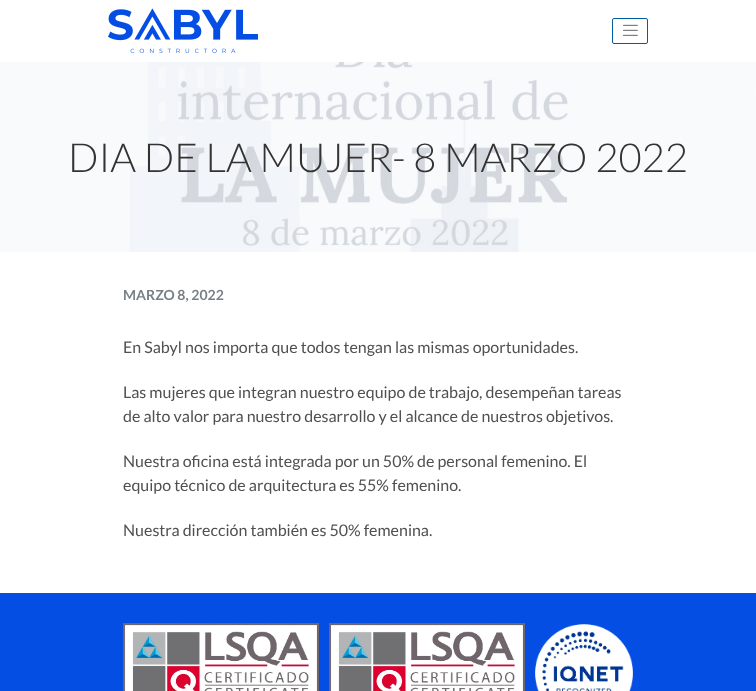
<svg xmlns="http://www.w3.org/2000/svg" width="756" height="691">
	<rect width="100%" height="100%" fill="#FFFFFF" />
	<image x="108" y="8" width="150" height="45" href="assets/img1.png" />
	<rect x="612.5" y="18.5" width="35" height="25" rx="1.5" fill="none" stroke="#005E9E" />
	<image x="623" y="24" width="15" height="12" href="assets/img2.png" />
	<image x="0" y="62" width="756" height="190" href="assets/img3.png" />
	<text x="68" y="172" font-family="Lato" font-size="40" font-weight="300" fill="#333333">DIA DE LA MUJER- 8 MARZO 2022</text>
	<text x="123" y="300" font-family="Lato" font-size="14" font-weight="700" fill="#798188">MARZO 8, 2022</text>
	<g font-family="Lato" font-size="16" fill="#505050">
		<text x="123" y="353">En Sabyl nos importa que todos tengan las mismas oportunidades.</text>
		<text x="123" y="398">Las mujeres que integran nuestro equipo de trabajo, desempeñan tareas</text>
		<text x="123" y="422">de alto valor para nuestro desarrollo y el alcance de nuestros objetivos.</text>
		<text x="123" y="467">Nuestra oficina está integrada por un 50% de personal femenino. El</text>
		<text x="123" y="491">equipo técnico de arquitectura es 55% femenino.</text>
		<text x="123" y="536">Nuestra dirección también es 50% femenina.</text>
	</g>
	<rect x="0" y="593" width="756" height="98" fill="#044EE3" />
	<image x="123" y="623" width="196" height="68" href="assets/img4.png" />
	<image x="329" y="623" width="196" height="68" href="assets/img5.png" />
	<image x="535" y="624" width="98" height="67" href="assets/img6.png" />
</svg>
